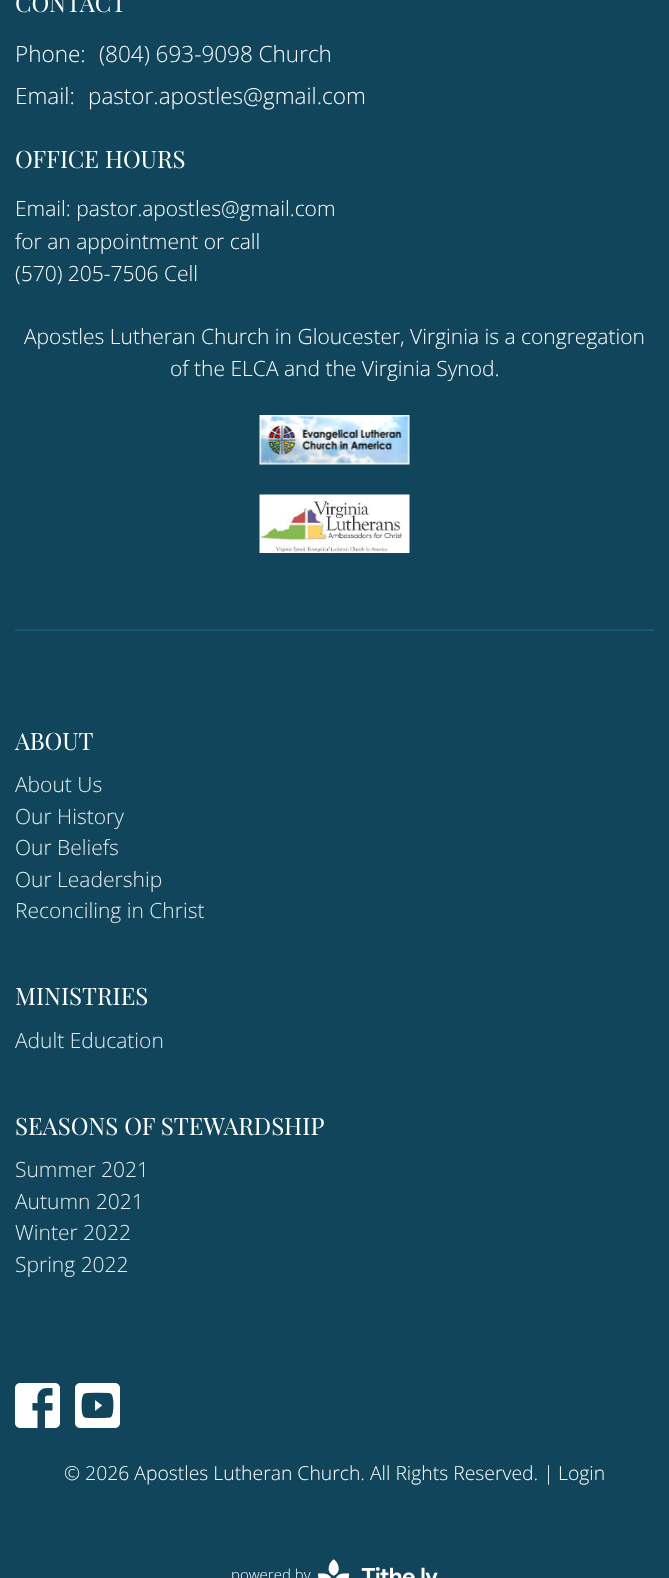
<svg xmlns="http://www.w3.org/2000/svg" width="669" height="1578">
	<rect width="100%" height="100%" fill="#10455B" />
	<text x="15" y="12" font-family="Playfair Display" font-size="24" fill="#FFFFFF">CONTACT</text>
	<g font-family="Open Sans" font-size="22.5" font-weight="300" fill="#FFFFFF">
		<text x="15" y="62">Phone:</text>
		<text x="99" y="62">(804) 693-9098 Church</text>
		<text x="15" y="104">Email:</text>
		<text x="88" y="104">pastor.apostles@gmail.com</text>
	</g>
	<text x="15" y="168" font-family="Playfair Display" font-size="24" fill="#FFFFFF">OFFICE HOURS</text>
	<g font-family="Open Sans" font-size="21" font-weight="300" fill="#FFFFFF">
		<text x="15" y="216">Email: pastor.apostles@gmail.com</text>
		<text x="15" y="249">for an appointment or call</text>
		<text x="15" y="281">(570) 205-7506 Cell</text>
		<text x="24" y="344">Apostles Lutheran Church in Gloucester, Virginia is a congregation</text>
		<text x="170" y="376">of the ELCA and the Virginia Synod.</text>
	</g>
	<image x="259" y="415" width="151" height="50" href="assets/img1.png" />
	<image x="259" y="494" width="151" height="59" href="assets/img2.png" />
	<rect x="15" y="629" width="639" height="2" fill="#155975" />
	<text x="15" y="750" font-family="Playfair Display" font-size="24" fill="#FFFFFF">ABOUT</text>
	<g font-family="Open Sans" font-size="21" font-weight="300" fill="#E7ECEF">
		<text x="15" y="792">About Us</text>
		<text x="15" y="824">Our History</text>
		<text x="15" y="855">Our Beliefs</text>
		<text x="15" y="887">Our Leadership</text>
		<text x="15" y="918">Reconciling in Christ</text>
	</g>
	<text x="15" y="1005" font-family="Playfair Display" font-size="24" fill="#FFFFFF">MINISTRIES</text>
	<text x="15" y="1048" font-family="Open Sans" font-size="21" font-weight="300" fill="#E7ECEF">Adult Education</text>
	<text x="15" y="1135" font-family="Playfair Display" font-size="24" fill="#FFFFFF">SEASONS OF STEWARDSHIP</text>
	<g font-family="Open Sans" font-size="21" font-weight="300" fill="#E7ECEF">
		<text x="15" y="1177">Summer 2021</text>
		<text x="15" y="1209">Autumn 2021</text>
		<text x="15" y="1240">Winter 2022</text>
		<text x="15" y="1272">Spring 2022</text>
	</g>
	<image x="15" y="1383" width="45" height="45" href="assets/img3.png" />
	<image x="75" y="1383" width="45" height="45" href="assets/img4.png" />
	<g font-family="Open Sans" font-size="19.35" font-weight="300" fill="#FFFFFF">
		<text x="64" y="1480">© 2026 Apostles Lutheran Church. All Rights Reserved. |</text>
		<text x="558" y="1480">Login</text>
	</g>
	<text x="231" y="1580" font-family="Open Sans" font-size="15" font-weight="300" fill="#FFFFFF">powered by</text>
	<image x="318" y="1559" width="120" height="19" href="assets/img5.png" />
</svg>
